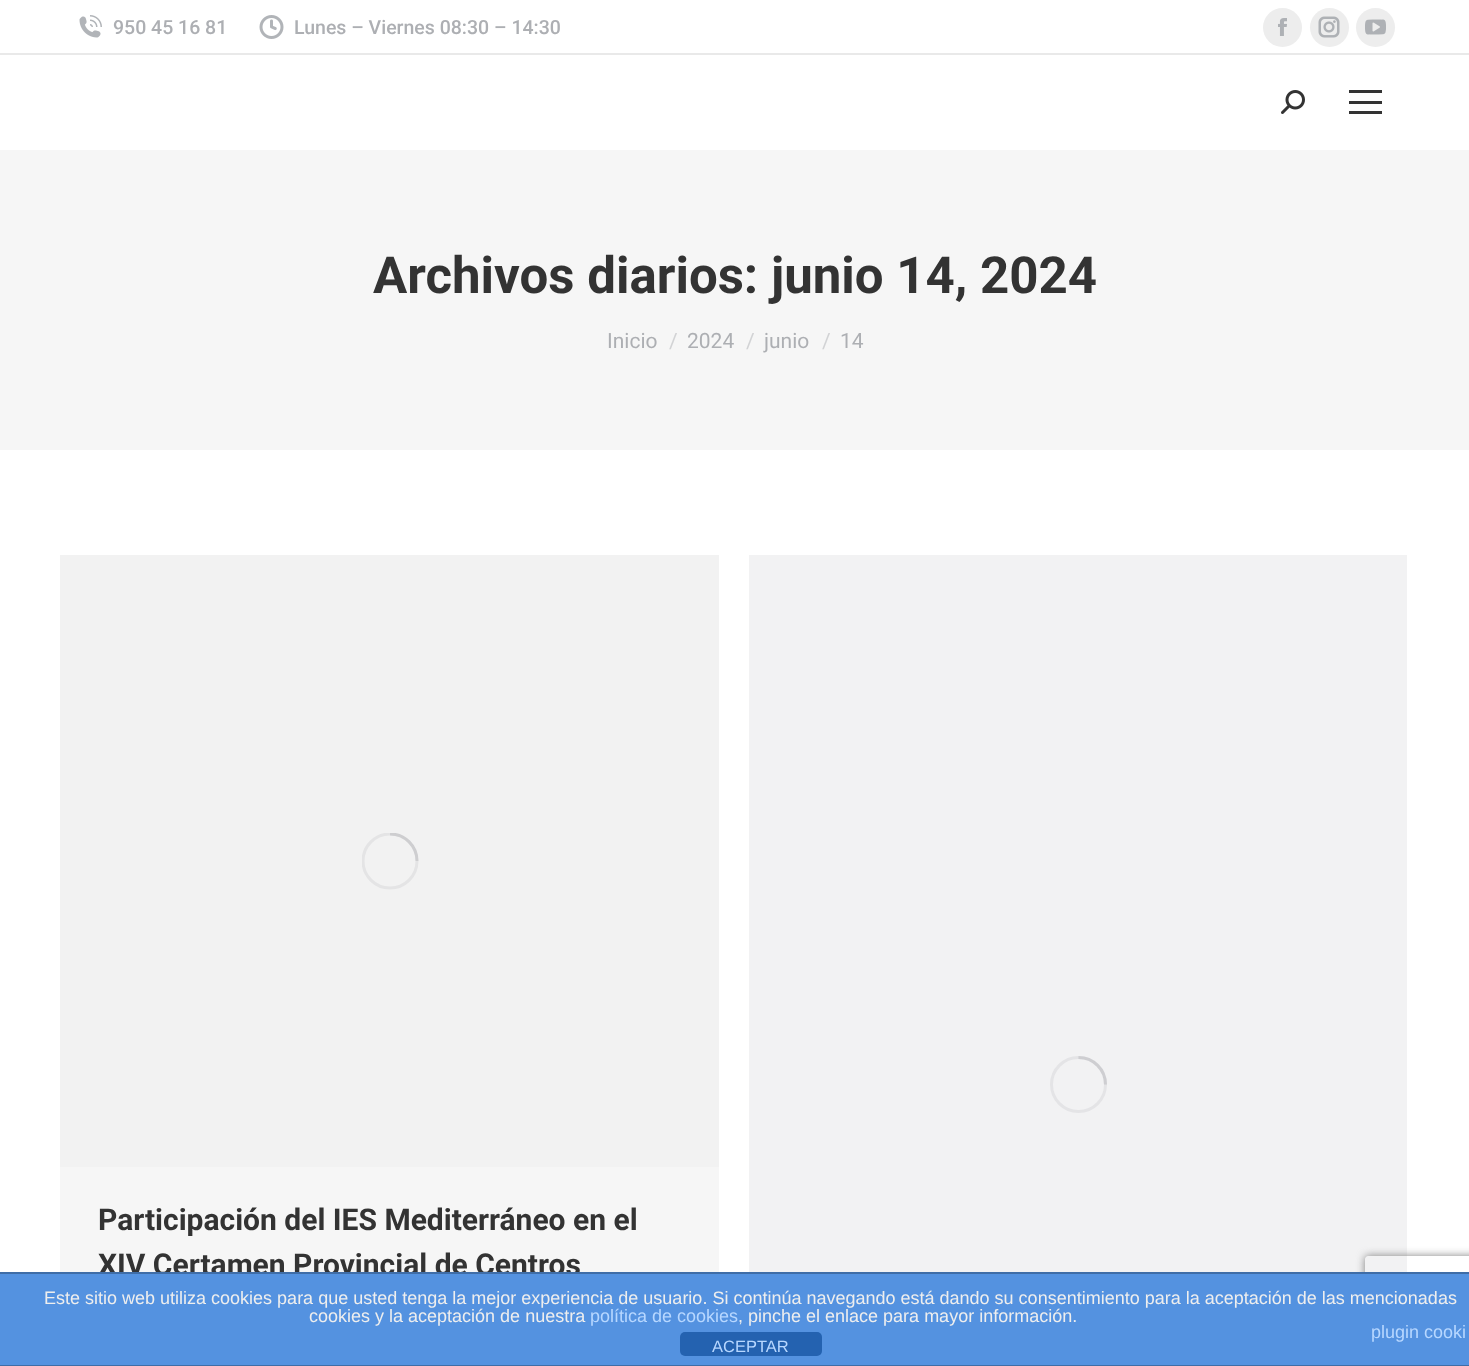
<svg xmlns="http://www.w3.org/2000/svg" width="1469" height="1366">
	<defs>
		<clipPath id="clip1"><rect x="362" y="833" width="57" height="57" /></clipPath>
		<clipPath id="clip2"><path d="M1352 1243H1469V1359H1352ZM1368 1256H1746C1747.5 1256 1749 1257.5 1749 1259V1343C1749 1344.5 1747.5 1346 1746 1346H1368C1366.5 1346 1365 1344.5 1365 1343V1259C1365 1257.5 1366.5 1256 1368 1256Z" clip-rule="evenodd" /></clipPath>
	</defs>
	<rect width="100%" height="100%" fill="#FFFFFF" />
	<image x="79" y="15" width="23" height="23" href="assets/img1.png" />
	<text x="113" y="34" font-family="Roboto" font-size="19.5" font-weight="500" fill="#ADAFB3">950 45 16 81</text>
	<image x="259" y="15" width="25" height="24" href="assets/img2.png" />
	<text x="294" y="34" font-family="Roboto" font-size="19.5" font-weight="500" fill="#ADAFB3">Lunes – Viernes 08:30 – 14:30</text>
	<circle cx="1282.5" cy="27.5" r="19.5" fill="#EDEDED" />
	<image x="1278" y="18" width="9" height="18" href="assets/img3.png" />
	<circle cx="1329.5" cy="27.5" r="19.5" fill="#EDEDED" />
	<image x="1318" y="16" width="22" height="22" href="assets/img4.png" />
	<circle cx="1375.5" cy="27.5" r="19.5" fill="#EDEDED" />
	<image x="1365" y="19" width="21" height="16" href="assets/img5.png" />
	<rect x="0" y="53" width="1469" height="2" fill="#E9E9E9" />
	<image x="1281" y="90" width="24" height="24" href="assets/img6.png" />
	<rect x="1349" y="90" width="33" height="3" fill="#333333" />
	<rect x="1349" y="101" width="33" height="3" fill="#333333" />
	<rect x="1349" y="111" width="33" height="3" fill="#333333" />
	<rect x="0" y="150" width="1469" height="300" fill="#F6F6F6" />
	<text x="373" y="293" font-family="Roboto" font-size="51" font-weight="700" fill="#333333">Archivos diarios: junio 14, 2024</text>
	<text x="607" y="348" font-family="Roboto" font-size="21" fill="#ADAFB3">Inicio</text>
	<text x="669" y="348" font-family="Roboto" font-size="21" fill="#D2D3D5">/</text>
	<text x="687" y="348" font-family="Roboto" font-size="21" fill="#ADAFB3">2024</text>
	<text x="746" y="348" font-family="Roboto" font-size="21" fill="#D2D3D5">/</text>
	<text x="764" y="348" font-family="Roboto" font-size="21" fill="#ADAFB3">junio</text>
	<text x="822" y="348" font-family="Roboto" font-size="21" fill="#D2D3D5">/</text>
	<text x="840" y="348" font-family="Roboto" font-size="21" fill="#ADAFB3">14</text>
	<rect x="60" y="1167" width="659" height="105" fill="#F6F6F6" />
	<rect x="60" y="555" width="659" height="612" fill="#F2F2F2" />
	<g clip-path="url(#clip1)">
		<circle cx="390" cy="861" r="27" fill="none" stroke="#E4E4E5" stroke-width="3" />
		<path d="M417 861C417 846 405 834 390 834" fill="none" stroke="#8B8D94" stroke-opacity="0.25" stroke-width="3" />
	</g>
	<g font-family="Roboto" font-size="30" font-weight="700" fill="#333333">
		<text x="98" y="1230">Participación del IES Mediterráneo en el</text>
		<text x="98" y="1275">XIV Certamen Provincial de Centros</text>
	</g>
	<rect x="749" y="555" width="658" height="717" fill="#F2F2F3" />
	<circle cx="1078.5" cy="1084.5" r="27" fill="none" stroke="#E4E4E6" stroke-width="3" />
	<path d="M1105.5 1084.5C1105.5 1069.5 1093.5 1057.5 1078.5 1057.5" fill="none" stroke="#8B8D94" stroke-opacity="0.25" stroke-width="3" />
	<g clip-path="url(#clip2)">
		<rect x="1365" y="1256" width="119" height="90" rx="3" fill="#808080" filter="blur(4px)" />
	</g>
	<rect x="0" y="1274" width="1469" height="91" fill="#5492E0" />
	<rect x="0" y="1272" width="1469" height="2" fill="#3F6DA7" />
	<rect x="0" y="1365" width="1469" height="1" fill="#3F6DA7" />
	<g font-family="Liberation Sans" font-size="18" fill="#EEEEEE">
		<text x="44" y="1304">Este sitio web utiliza cookies para que usted tenga la mejor experiencia de usuario. Si continúa navegando está dando su consentimiento para la aceptación de las mencionadas</text>
		<text x="309" y="1322">cookies y la aceptación de nuestra</text>
	</g>
	<text x="590" y="1322" font-family="Liberation Sans" font-size="18" fill="#B7D7FF">política de cookies</text>
	<text x="738" y="1322" font-family="Liberation Sans" font-size="18" fill="#EEEEEE">, pinche el enlace para mayor información.</text>
	<text x="1371" y="1338" font-family="Liberation Sans" font-size="18" fill="#B7D7FF">plugin cooki</text>
	<rect x="680" y="1332" width="142" height="24" rx="5" fill="#2462B0" />
	<text x="712" y="1352" font-family="Liberation Sans" font-size="16.5" fill="#B7D7FF">ACEPTAR</text>
</svg>
